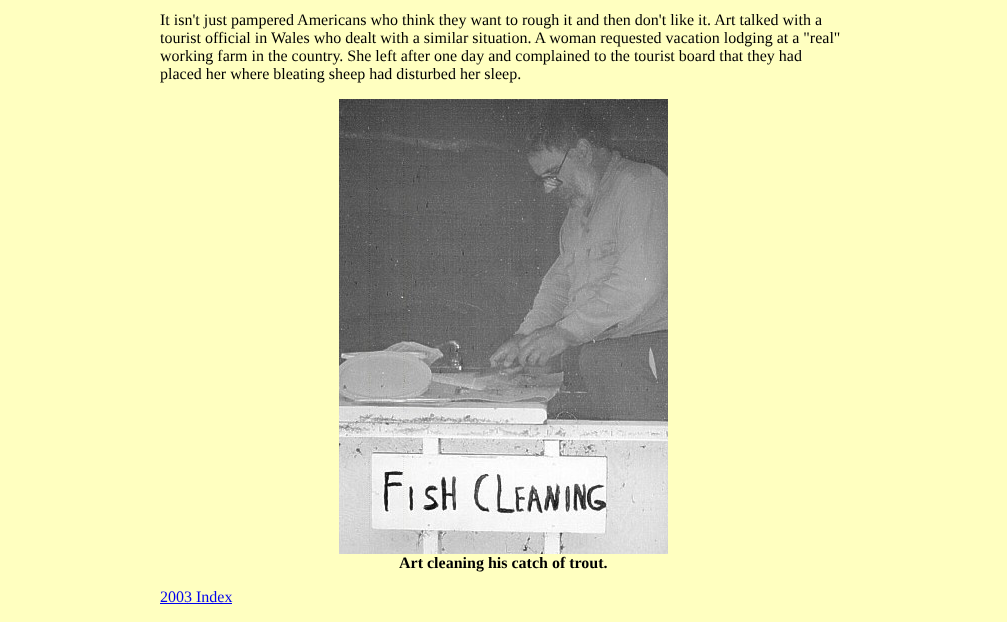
<svg xmlns="http://www.w3.org/2000/svg" width="1007" height="622">
	<rect width="100%" height="100%" fill="#FFFFC0" />
	<g font-family="Liberation Serif" font-size="16" fill="#000000">
		<text x="160" y="25">It isn't just pampered Americans who think they want to rough it and then don't like it. Art talked with a</text>
		<text x="160" y="43">tourist official in Wales who dealt with a similar situation. A woman requested vacation lodging at a "real"</text>
		<text x="160" y="61">working farm in the country. She left after one day and complained to the tourist board that they had</text>
		<text x="160" y="79">placed her where bleating sheep had disturbed her sleep.</text>
	</g>
	<image x="339" y="99" width="329" height="455" href="assets/img1.png" />
	<text x="399" y="568" font-family="Liberation Serif" font-size="16" font-weight="700" fill="#000000">Art cleaning his catch of trout.</text>
	<text x="160" y="602" font-family="Liberation Serif" font-size="16" fill="#0000EE">2003 Index</text>
	<rect x="160" y="603" width="72" height="1" fill="#0000EE" />
</svg>
